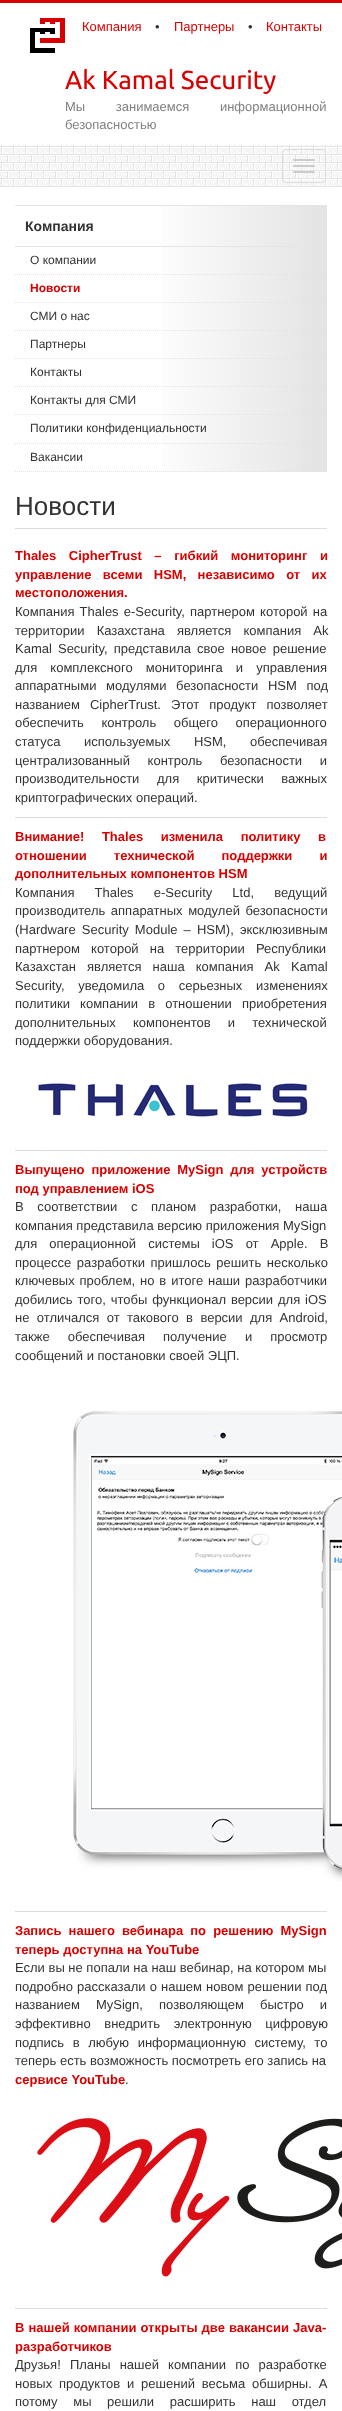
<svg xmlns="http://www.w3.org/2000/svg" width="342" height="2411">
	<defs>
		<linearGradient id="g1" gradientUnits="userSpaceOnUse" x1="15" y1="339" x2="327" y2="339"><stop offset="0.42" stop-color="#FFFFFF" /><stop offset="1" stop-color="#E3E3E3" /></linearGradient>
	</defs>
	<rect width="100%" height="100%" fill="#FFFFFF" />
	<rect x="0" y="0" width="342" height="3" fill="#D90000" />
	<image x="30" y="18" width="35" height="35" href="assets/img1.png" />
	<text x="82" y="31" font-family="Liberation Sans" font-size="13" fill="#D90000">Компания</text>
	<text x="155" y="31" font-family="Liberation Sans" font-size="13" fill="#333333">•</text>
	<text x="174" y="31" font-family="Liberation Sans" font-size="13" fill="#D90000">Партнеры</text>
	<text x="248" y="31" font-family="Liberation Sans" font-size="13" fill="#333333">•</text>
	<text x="266" y="31" font-family="Liberation Sans" font-size="13" fill="#D90000">Контакты</text>
	<text x="65" y="89" font-family="Ubuntu" font-size="26" fill="#D90000">Ak Kamal Security</text>
	<g font-family="Liberation Sans" font-size="13" fill="#808080">
		<text x="65" y="111" word-spacing="27">Мы занимаемся информационной</text>
		<text x="65" y="129">безопасностью</text>
	</g>
	<image x="0" y="145" width="342" height="42" href="assets/img2.png" />
	<rect x="282.5" y="149.5" width="43" height="33" rx="3.5" fill="none" stroke="#DDDDDD" />
	<rect x="293" y="159" width="22" height="2" rx="1" fill="#CCCCCC" />
	<rect x="293" y="165" width="22" height="2" rx="1" fill="#CCCCCC" />
	<rect x="293" y="171" width="22" height="2" rx="1" fill="#CCCCCC" />
	<rect x="162" y="206" width="165" height="266" fill="url(#g1)" />
	<rect x="15" y="205" width="312" height="1" fill="#E5E5E5" />
	<rect x="15" y="246" width="283" height="1" fill="#E5E5E5" />
	<text x="25" y="231" font-family="Liberation Sans" font-size="14" font-weight="700" fill="#333333">Компания</text>
	<path d="M15 274.5H327" fill="none" stroke="#E3E3E3" stroke-dasharray="1 1" />
	<text x="30" y="264" font-family="Liberation Sans" font-size="12" fill="#333333">О компании</text>
	<path d="M15 302.5H327" fill="none" stroke="#E3E3E3" stroke-dasharray="1 1" />
	<text x="30" y="292" font-family="Liberation Sans" font-size="12" font-weight="700" fill="#D90000">Новости</text>
	<path d="M15 330.5H327" fill="none" stroke="#E3E3E3" stroke-dasharray="1 1" />
	<text x="30" y="320" font-family="Liberation Sans" font-size="12" fill="#333333">СМИ о нас</text>
	<path d="M15 358.5H327" fill="none" stroke="#E3E3E3" stroke-dasharray="1 1" />
	<text x="30" y="348" font-family="Liberation Sans" font-size="12" fill="#333333">Партнеры</text>
	<path d="M15 386.5H327" fill="none" stroke="#E3E3E3" stroke-dasharray="1 1" />
	<text x="30" y="376" font-family="Liberation Sans" font-size="12" fill="#333333">Контакты</text>
	<path d="M15 414.5H327" fill="none" stroke="#E3E3E3" stroke-dasharray="1 1" />
	<text x="30" y="404" font-family="Liberation Sans" font-size="12" fill="#333333">Контакты для СМИ</text>
	<path d="M15 443.5H327" fill="none" stroke="#E3E3E3" stroke-dasharray="1 1" />
	<text x="30" y="432" font-family="Liberation Sans" font-size="12" fill="#333333">Политики конфиденциальности</text>
	<path d="M15 471.5H327" fill="none" stroke="#E3E3E3" stroke-dasharray="1 1" />
	<text x="30" y="461" font-family="Liberation Sans" font-size="12" fill="#333333">Вакансии</text>
	<rect x="15" y="528" width="312" height="1" fill="#DDDDDD" />
	<text x="15" y="515" font-family="Liberation Sans" font-size="26" fill="#333333">Новости</text>
	<rect x="15" y="817" width="312" height="1" fill="#DDDDDD" />
	<g font-family="Liberation Sans" font-size="13" font-weight="700" fill="#D90000">
		<text x="15" y="560" word-spacing="9">Thales CipherTrust – гибкий мониторинг и</text>
		<text x="15" y="579" word-spacing="7.75">управление всеми HSM, независимо от их</text>
		<text x="15" y="597">местоположения.</text>
	</g>
	<g font-family="Liberation Sans" font-size="13" fill="#333333">
		<text x="15" y="616" word-spacing="1.5">Компания Thales e-Security, партнером которой на</text>
		<text x="15" y="635" word-spacing="8.5">территории Казахстана является компания Ak</text>
		<text x="15" y="653" word-spacing="2.5">Kamal Security, представила свое новое решение</text>
		<text x="15" y="672" word-spacing="9.5">для комплексного мониторинга и управления</text>
		<text x="15" y="690" word-spacing="6">аппаратными модулями безопасности HSM под</text>
		<text x="15" y="709" word-spacing="6.5">названием CipherTrust. Этот продукт позволяет</text>
		<text x="15" y="727" word-spacing="14">обеспечить контроль общего операционного</text>
		<text x="15" y="746" word-spacing="20">статуса используемых HSM, обеспечивая</text>
		<text x="15" y="765" word-spacing="14">централизованный контроль безопасности и</text>
		<text x="15" y="783" word-spacing="14">производительности для критически важных</text>
		<text x="15" y="802">криптографических операций.</text>
	</g>
	<rect x="15" y="1150" width="312" height="1" fill="#DDDDDD" />
	<g font-family="Liberation Sans" font-size="13" font-weight="700" fill="#D90000">
		<text x="15" y="841" word-spacing="14">Внимание! Thales изменила политику в</text>
		<text x="15" y="860" word-spacing="23.5">отношении технической поддержки и</text>
		<text x="15" y="878">дополнительных компонентов HSM</text>
	</g>
	<g font-family="Liberation Sans" font-size="13" fill="#333333">
		<text x="15" y="897" word-spacing="16.5">Компания Thales e-Security Ltd, ведущий</text>
		<text x="15" y="915" word-spacing="2">производитель аппаратных модулей безопасности</text>
		<text x="15" y="934" word-spacing="2.5">(Hardware Security Module – HSM), эксклюзивным</text>
		<text x="15" y="953" word-spacing="7.5">партнером которой на территории Республики</text>
		<text x="15" y="971" word-spacing="7.5">Казахстан является наша компания Ak Kamal</text>
		<text x="15" y="990" word-spacing="10">Security, уведомила о серьезных изменениях</text>
		<text x="15" y="1008" word-spacing="6.5">политики компании в отношении приобретения</text>
		<text x="15" y="1027" word-spacing="13.5">дополнительных компонентов и технической</text>
		<text x="15" y="1045">поддержки оборудования.</text>
	</g>
	<image x="38" y="1083" width="270" height="34" href="assets/img3.png" />
	<rect x="15" y="1911" width="312" height="1" fill="#DDDDDD" />
	<g font-family="Liberation Sans" font-size="13" font-weight="700" fill="#D90000">
		<text x="15" y="1174" word-spacing="3.25">Выпущено приложение MySign для устройств</text>
		<text x="15" y="1193">под управлением iOS</text>
	</g>
	<g font-family="Liberation Sans" font-size="13" fill="#333333">
		<text x="15" y="1211" word-spacing="10">В соответствии с планом разработки, наша</text>
		<text x="15" y="1230">компания представила версию приложения MySign</text>
		<text x="15" y="1248" word-spacing="8.5">для операционной системы iOS от Apple. В</text>
		<text x="15" y="1267" word-spacing="2">процессе разработки пришлось решить несколько</text>
		<text x="15" y="1285" word-spacing="1.25">ключевых проблем, но в итоге наши разработчики</text>
		<text x="15" y="1304" word-spacing="1.25">добились того, чтобы функционал версии для iOS</text>
		<text x="15" y="1322" word-spacing="3.75">не отличался от такового в версии для Android,</text>
		<text x="15" y="1341" word-spacing="14.5">также обеспечивая получение и просмотр</text>
		<text x="15" y="1360">сообщений и постановки своей ЭЦП.</text>
	</g>
	<image x="73" y="1411" width="269" height="470" href="assets/img4.png" />
	<rect x="15" y="2308" width="312" height="1" fill="#DDDDDD" />
	<g font-family="Liberation Sans" font-size="13" font-weight="700" fill="#D90000">
		<text x="15" y="1935" word-spacing="3.5">Запись нашего вебинара по решению MySign</text>
		<text x="15" y="1954">теперь доступна на YouTube</text>
	</g>
	<g font-family="Liberation Sans" font-size="13" fill="#333333">
		<text x="15" y="1972">Если вы не попали на наш вебинар, на котором мы</text>
		<text x="15" y="1991" word-spacing="0.5">подробно рассказали о нашем новом решении под</text>
		<text x="15" y="2009" word-spacing="12.5">названием MySign, позволяющем быстро и</text>
		<text x="15" y="2028" word-spacing="10">эффективно внедрить электронную цифровую</text>
		<text x="15" y="2047" word-spacing="5">подпись в любую информационную систему, то</text>
		<text x="15" y="2065">теперь есть возможность посмотреть его запись на</text>
	</g>
	<text x="15" y="2084" font-family="Liberation Sans" font-size="13" font-weight="700" fill="#D90000">сервисе YouTube</text>
	<text x="125" y="2084" font-family="Liberation Sans" font-size="13" fill="#333333">.</text>
	<image x="37" y="2118" width="305" height="159" href="assets/img5.png" />
	<g font-family="Liberation Sans" font-size="13" font-weight="700" fill="#D90000">
		<text x="15" y="2332" word-spacing="0.5">В нашей компании открыты две вакансии Java-</text>
		<text x="15" y="2351">разработчиков</text>
	</g>
	<g font-family="Liberation Sans" font-size="13" fill="#333333">
		<text x="15" y="2369" word-spacing="5.5">Друзья! Планы нашей компании по разработке</text>
		<text x="15" y="2388" word-spacing="3.25">новых продуктов и решений весьма обширны. А</text>
		<text x="15" y="2406" word-spacing="12">потому мы решили расширить наш отдел</text>
	</g>
</svg>
